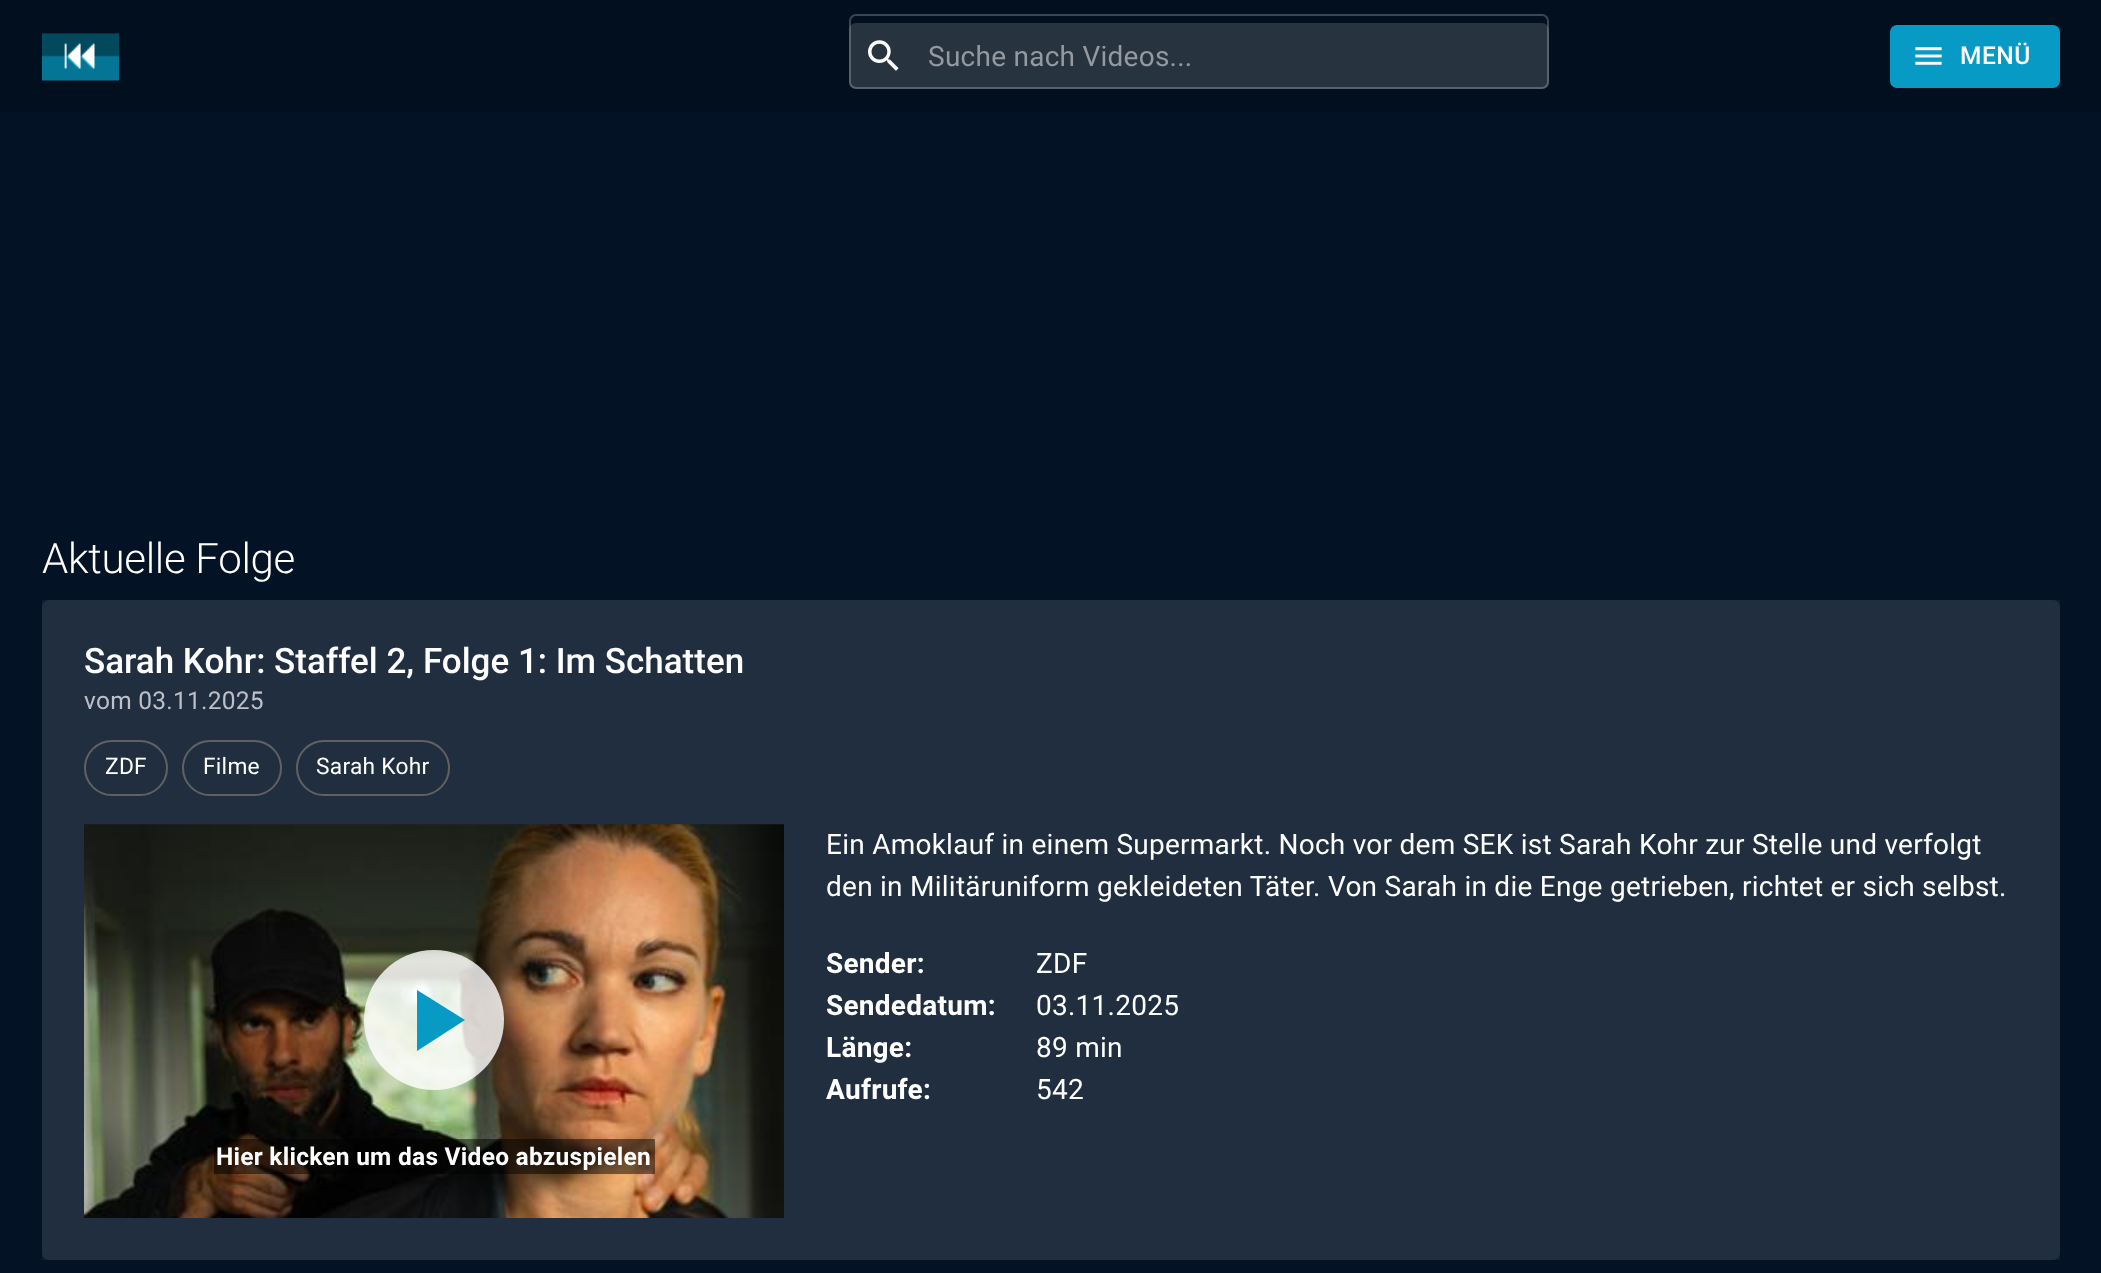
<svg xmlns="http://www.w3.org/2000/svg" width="2101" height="1273">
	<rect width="100%" height="100%" fill="#031224" />
	<rect x="0" y="0" width="2101" height="112" fill="#020F1E" />
	<image x="42" y="33" width="77" height="48" href="assets/img1.png" />
	<rect x="849" y="23" width="700" height="66" rx="7" fill="#283340" />
	<image x="868" y="40" width="31" height="31" href="assets/img2.png" />
	<rect x="850" y="15" width="698" height="73" rx="6" fill="none" stroke="#FFFFFF" stroke-opacity="0.23" stroke-width="2" />
	<text x="928" y="66" font-family="Roboto" font-size="28" letter-spacing="0.25" fill="#9499A0">Suche nach Videos...</text>
	<rect x="1890" y="25" width="170" height="63" rx="7" fill="#069AC4" />
	<image x="1915" y="47" width="27" height="18" href="assets/img3.png" />
	<text x="1960" y="64" font-family="Roboto" font-size="24.5" font-weight="500" letter-spacing="0.5" fill="#FFFFFF">MENÜ</text>
	<text x="42" y="573" font-family="Roboto" font-size="42" font-weight="300" letter-spacing="-0.3" fill="#FFFFFF">Aktuelle Folge</text>
	<rect x="42" y="600" width="2018" height="660" rx="7" fill="#162336" />
	<rect x="42" y="600" width="2018" height="660" fill="#FFFFFF" fill-opacity="0.05" />
	<text x="84" y="673" font-family="Roboto" font-size="35" font-weight="500" fill="#FFFFFF">Sarah Kohr: Staffel 2, Folge 1: Im Schatten</text>
	<text x="84" y="709" font-family="Roboto" font-size="24.5" letter-spacing="0.25" fill="#BDC0C6">vom 03.11.2025</text>
	<rect x="85" y="741" width="82" height="54" rx="27" fill="none" stroke="#616161" stroke-width="2" />
	<text x="105" y="774" font-family="Roboto" font-size="22.75" letter-spacing="0.25" fill="#FFFFFF">ZDF</text>
	<rect x="183" y="741" width="98" height="54" rx="27" fill="none" stroke="#616161" stroke-width="2" />
	<text x="203" y="774" font-family="Roboto" font-size="22.75" letter-spacing="0.25" fill="#FFFFFF">Filme</text>
	<rect x="297" y="741" width="152" height="54" rx="27" fill="none" stroke="#616161" stroke-width="2" />
	<text x="316" y="774" font-family="Roboto" font-size="22.75" letter-spacing="0.25" fill="#FFFFFF">Sarah Kohr</text>
	<g font-family="Roboto" font-size="28" letter-spacing="0.25" fill="#FFFFFF">
		<text x="826" y="854">Ein Amoklauf in einem Supermarkt. Noch vor dem SEK ist Sarah Kohr zur Stelle und verfolgt</text>
		<text x="826" y="896">den in Militäruniform gekleideten Täter. Von Sarah in die Enge getrieben, richtet er sich selbst.</text>
	</g>
	<text x="826" y="973" font-family="Roboto" font-size="28" font-weight="700" letter-spacing="0.25" fill="#FFFFFF">Sender:</text>
	<text x="1036" y="973" font-family="Roboto" font-size="28" letter-spacing="0.25" fill="#FFFFFF">ZDF</text>
	<text x="826" y="1015" font-family="Roboto" font-size="28" font-weight="700" letter-spacing="0.25" fill="#FFFFFF">Sendedatum:</text>
	<text x="1036" y="1015" font-family="Roboto" font-size="28" letter-spacing="0.25" fill="#FFFFFF">03.11.2025</text>
	<text x="826" y="1057" font-family="Roboto" font-size="28" font-weight="700" letter-spacing="0.25" fill="#FFFFFF">Länge:</text>
	<text x="1036" y="1057" font-family="Roboto" font-size="28" letter-spacing="0.25" fill="#FFFFFF">89 min</text>
	<text x="826" y="1099" font-family="Roboto" font-size="28" font-weight="700" letter-spacing="0.25" fill="#FFFFFF">Aufrufe:</text>
	<text x="1036" y="1099" font-family="Roboto" font-size="28" letter-spacing="0.25" fill="#FFFFFF">542</text>
	<image x="84" y="824" width="700" height="394" href="assets/img4.png" />
	<circle cx="434" cy="1020" r="70" fill="#FFFFFF" fill-opacity="0.8" />
	<path d="M417 990L465 1020L417 1051Z" fill="#069AC4" />
	<rect x="214" y="1139" width="441" height="35" fill="#000000" fill-opacity="0.5" />
	<text x="216" y="1165" font-family="Roboto" font-size="24.5" font-weight="700" letter-spacing="0.25" fill="#FFFFFF">Hier klicken um das Video abzuspielen</text>
</svg>
